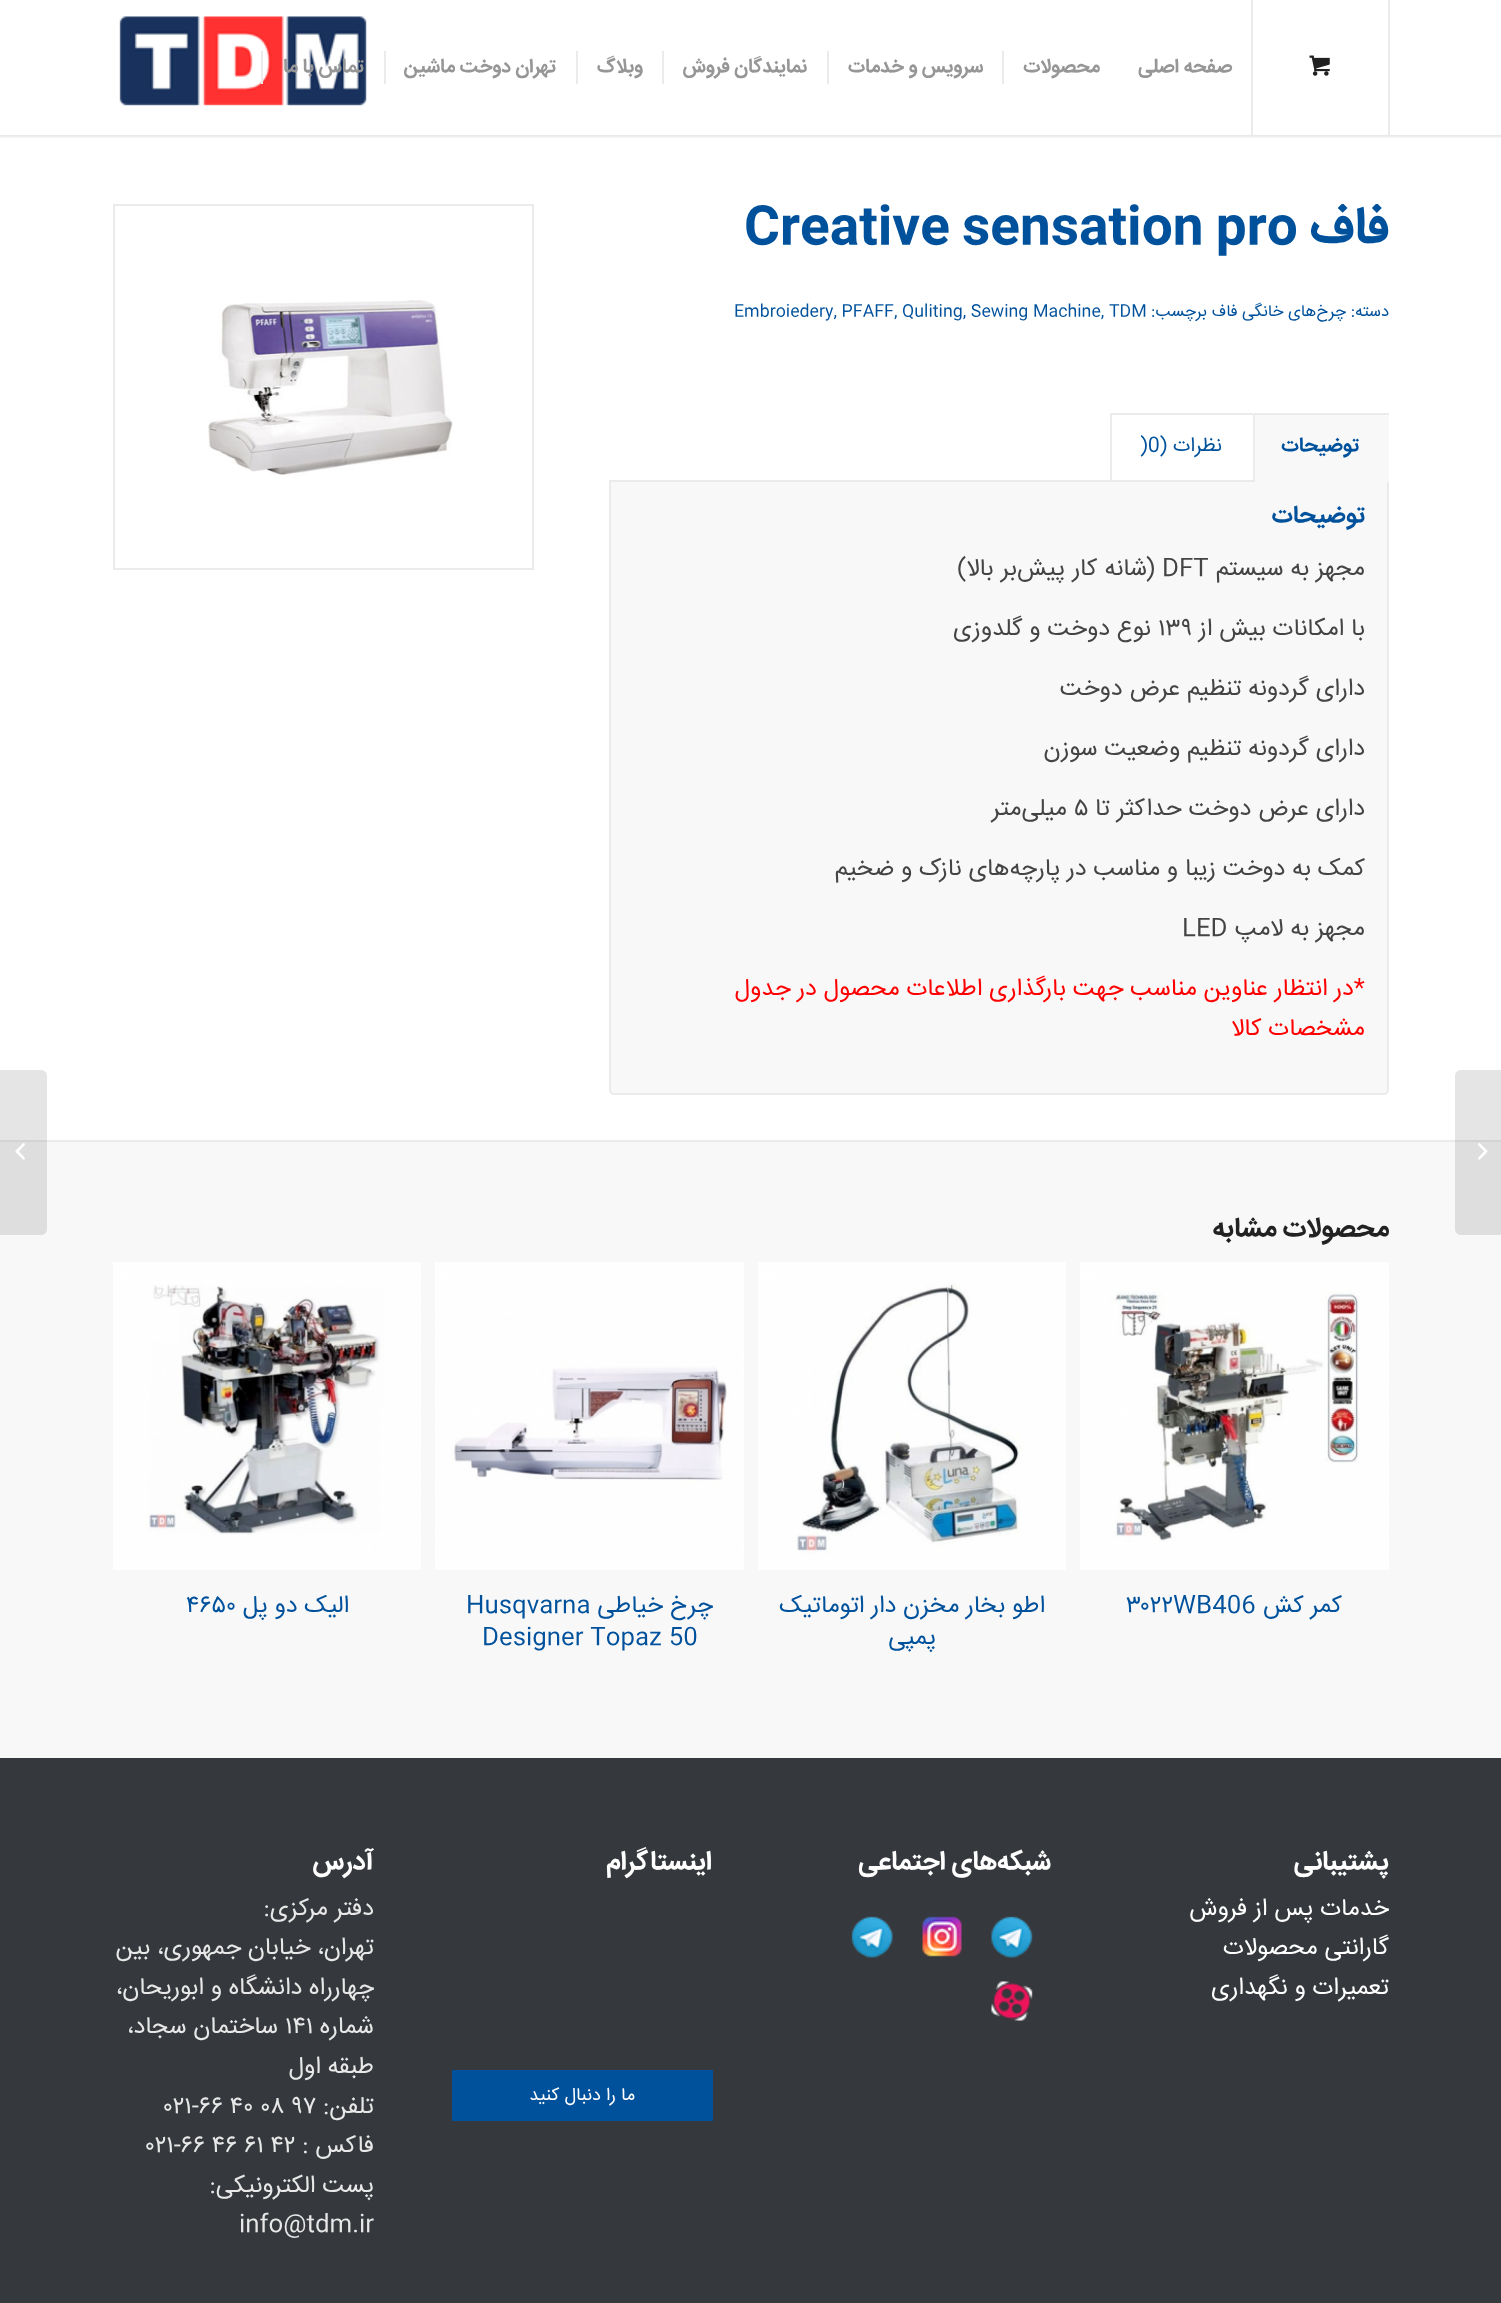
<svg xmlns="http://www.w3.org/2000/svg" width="1501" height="2303">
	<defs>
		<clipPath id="clip1"><rect x="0" y="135" width="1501" height="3" /></clipPath>
		<clipPath id="clip2"><rect x="609" y="204" width="780" height="936" /></clipPath>
	</defs>
	<rect width="100%" height="100%" fill="#FFFFFF" />
	<g clip-path="url(#clip1)">
		<rect x="-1" y="-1" width="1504" height="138" fill="#000000" fill-opacity="0.1" filter="blur(1.5px)" />
	</g>
	<rect x="1388" y="0" width="2" height="135" fill="#EBEBEB" />
	<rect x="1251" y="0" width="2" height="135" fill="#EBEBEB" />
	<image x="1309" y="55" width="21" height="21" href="assets/img1.png" />
	<g font-family="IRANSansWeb" font-size="19.5" font-weight="700" direction="rtl" fill="#969696">
		<text x="1232" y="72">صفحه اصلی</text>
		<text x="1100" y="72">محصولات</text>
	</g>
	<rect x="1002" y="51" width="2" height="33" fill="#EBEBEB" />
	<text x="983" y="72" font-family="IRANSansWeb" font-size="19.5" font-weight="700" direction="rtl" fill="#969696">سرویس و خدمات</text>
	<rect x="827" y="51" width="2" height="33" fill="#EBEBEB" />
	<text x="807" y="72" font-family="IRANSansWeb" font-size="19.5" font-weight="700" direction="rtl" fill="#969696">نمایندگان فروش</text>
	<rect x="662" y="51" width="2" height="33" fill="#EBEBEB" />
	<text x="643" y="72" font-family="IRANSansWeb" font-size="19.5" font-weight="700" direction="rtl" fill="#969696">وبلاگ</text>
	<rect x="576" y="51" width="2" height="33" fill="#EBEBEB" />
	<text x="556" y="72" font-family="IRANSansWeb" font-size="19.5" font-weight="700" direction="rtl" fill="#969696">تهران دوخت ماشین</text>
	<rect x="384" y="51" width="2" height="33" fill="#EBEBEB" />
	<image x="119" y="16" width="248" height="90" href="assets/img2.png" />
	<text x="364" y="72" font-family="IRANSansWeb" font-size="19.5" font-weight="700" direction="rtl" fill="#969696">تماس با ما</text>
	<rect x="261" y="51" width="2" height="33" fill="#EBEBEB" />
	<rect x="0" y="1142" width="1501" height="616" fill="#F8F8F8" />
	<rect x="0" y="1140" width="1501" height="2" fill="#EBEBEB" />
	<path d="M1461 1070H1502V1235H1461C1457.5 1235 1455 1232.5 1455 1229V1076C1455 1072.5 1457.5 1070 1461 1070Z" fill="#000000" fill-opacity="0.1" />
	<image x="1478" y="1143" width="10" height="17" href="assets/img3.png" />
	<g clip-path="url(#clip2)">
		<text x="1389" y="242" font-family="IRANSansWeb" font-size="51" font-weight="700" direction="rtl" fill="#00519C">فاف</text>
	</g>
	<text x="744" y="242" font-family="IRANSansWeb" font-size="51" font-weight="700" fill="#00519C">Creative sensation pro</text>
	<g font-family="IRANSansWeb" font-size="16.5" direction="rtl" fill="#00519C">
		<text x="1389" y="316">دسته:</text>
		<text x="1346" y="316">چرخ‌های خانگی فاف</text>
		<text x="1207" y="316">برچسب:</text>
	</g>
	<text x="734" y="316" font-family="IRANSansWeb" font-size="16.5" fill="#00519C">Embroiedery, PFAFF, Quliting, Sewing Machine, TDM</text>
	<path d="M610 481H1388V1090C1388 1092 1386 1094 1384 1094H614C612 1094 610 1092 610 1090Z" fill="#F8F8F8" stroke="#EBEBEB" stroke-width="2" />
	<rect x="1253" y="413" width="136" height="69" fill="#F8F8F8" />
	<rect x="1254" y="413" width="135" height="2" fill="#EBEBEB" />
	<rect x="1253" y="414" width="2" height="68" fill="#EBEBEB" />
	<text x="1359" y="451" font-family="IRANSansWeb" font-size="20" font-weight="700" direction="rtl" fill="#00519C">توضیحات</text>
	<rect x="1110" y="413" width="143" height="2" fill="#EBEBEB" />
	<rect x="1110" y="413" width="2" height="69" fill="#EBEBEB" />
	<text x="1222" y="451" font-family="IRANSansWeb" font-size="20" direction="rtl" fill="#00519C">نظرات (</text>
	<text x="1140" y="451" font-family="IRANSansWeb" font-size="20" fill="#00519C">)0</text>
	<text x="1365" y="522" font-family="IRANSansWeb" font-size="24" font-weight="700" direction="rtl" fill="#00519C">توضیحات</text>
	<text x="1365" y="575" font-family="IRANSansWeb" font-size="24" direction="rtl" fill="#444444">مجهز به سیستم</text>
	<text x="1162" y="575" font-family="IRANSansWeb" font-size="24" fill="#444444">DFT</text>
	<g font-family="IRANSansWeb" font-size="24" direction="rtl" fill="#444444">
		<text x="1155" y="575" word-spacing="0.5">(شانه کار پیش‌بر بالا)</text>
		<text x="1365" y="635">با امکانات بیش از</text>
	</g>
	<text x="1158" y="635" font-family="IRANSansWeb" font-size="24" fill="#444444">۱۳۹</text>
	<g font-family="IRANSansWeb" font-size="24" direction="rtl" fill="#444444">
		<text x="1151" y="635">نوع دوخت و گلدوزی</text>
		<text x="1365" y="695">دارای گردونه تنظیم عرض دوخت</text>
		<text x="1365" y="755">دارای گردونه تنظیم وضعیت سوزن</text>
		<text x="1365" y="815">دارای عرض دوخت حداکثر تا</text>
	</g>
	<text x="1074" y="815" font-family="IRANSansWeb" font-size="24" fill="#444444">۵</text>
	<g font-family="IRANSansWeb" font-size="24" direction="rtl" fill="#444444">
		<text x="1067" y="815">میلی‌متر</text>
		<text x="1365" y="875">کمک به دوخت زیبا و مناسب در پارچه‌های نازک و ضخیم</text>
		<text x="1365" y="935">مجهز به لامپ</text>
	</g>
	<text x="1182" y="935" font-family="IRANSansWeb" font-size="24" fill="#444444">LED</text>
	<g font-family="IRANSansWeb" font-size="24" direction="rtl" fill="#FF0000">
		<text x="1365" y="995">*در انتظار عناوین مناسب جهت بارگذاری اطلاعات محصول در جدول</text>
		<text x="1365" y="1035">مشخصات کالا</text>
	</g>
	<rect x="114" y="205" width="419" height="364" fill="none" stroke="#EBEBEB" stroke-width="2" />
	<image x="208" y="300" width="245" height="176" href="assets/img4.png" />
	<text x="1389" y="1236" font-family="IRANSansWeb" font-size="27" font-weight="700" direction="rtl" fill="#222222">محصولات مشابه</text>
	<image x="1080" y="1262" width="309" height="308" href="assets/img5.png" />
	<text x="1342" y="1612" font-family="IRANSansWeb" font-size="24" direction="rtl" fill="#00519C">کمر کش</text>
	<text x="1126" y="1612" font-family="IRANSansWeb" font-size="24" fill="#00519C">۳۰۲۲WB406</text>
	<image x="758" y="1262" width="308" height="308" href="assets/img6.png" />
	<g font-family="IRANSansWeb" font-size="24" direction="rtl" fill="#00519C">
		<text x="1045" y="1612">اطو بخار مخزن دار اتوماتیک</text>
		<text x="936" y="1644">پمپی</text>
	</g>
	<image x="435" y="1262" width="309" height="308" href="assets/img7.png" />
	<text x="713" y="1612" font-family="IRANSansWeb" font-size="24" direction="rtl" fill="#00519C">چرخ خیاطی</text>
	<g font-family="IRANSansWeb" font-size="24" fill="#00519C">
		<text x="466" y="1612">Husqvarna</text>
		<text x="482" y="1644">Designer Topaz 50</text>
	</g>
	<image x="113" y="1262" width="308" height="308" href="assets/img8.png" />
	<text x="349" y="1612" font-family="IRANSansWeb" font-size="24" direction="rtl" fill="#00519C">الیک دو پل</text>
	<text x="186" y="1612" font-family="IRANSansWeb" font-size="24" fill="#00519C">۴۶۵۰</text>
	<rect x="0" y="1758" width="1501" height="545" fill="#35383C" />
	<text x="1389" y="1869" font-family="IRANSansWeb" font-size="26.5" font-weight="700" direction="rtl" fill="#FFFFFF">پشتیبانی</text>
	<g font-family="IRANSansWeb" font-size="24" direction="rtl" fill="#FFFFFF">
		<text x="1389" y="1915">خدمات پس از فروش</text>
		<text x="1389" y="1954">گارانتی محصولات</text>
		<text x="1389" y="1994">تعمیرات و نگهداری</text>
	</g>
	<text x="1051" y="1869" font-family="IRANSansWeb" font-size="26.5" font-weight="700" direction="rtl" fill="#FFFFFF">شبکه‌های اجتماعی</text>
	<image x="991" y="1916" width="42" height="42" href="assets/img9.png" />
	<image x="922" y="1916" width="40" height="41" href="assets/img10.png" />
	<image x="851" y="1916" width="42" height="42" href="assets/img11.png" />
	<image x="991" y="1981" width="42" height="40" href="assets/img12.png" />
	<text x="712" y="1869" font-family="IRANSansWeb" font-size="26.5" font-weight="700" direction="rtl" fill="#FFFFFF">اینستاگرام</text>
	<rect x="452" y="2070" width="261" height="51" fill="#00519C" />
	<text x="635" y="2100" font-family="IRANSansWeb" font-size="18" direction="rtl" fill="#FFFFFF">ما را دنبال کنید</text>
	<text x="374" y="1869" font-family="IRANSansWeb" font-size="26.5" font-weight="700" direction="rtl" fill="#FFFFFF">آدرس</text>
	<g font-family="IRANSansWeb" font-size="24" direction="rtl" fill="#E8E8E8">
		<text x="374" y="1915">دفتر مرکزی:</text>
		<text x="374" y="1954">تهران، خیابان جمهوری، بین</text>
		<text x="374" y="1994">چهارراه دانشگاه و ابوریحان،</text>
		<text x="374" y="2033">شماره</text>
	</g>
	<text x="285" y="2033" font-family="IRANSansWeb" font-size="24" fill="#E8E8E8">۱۴۱</text>
	<g font-family="IRANSansWeb" font-size="24" direction="rtl" fill="#E8E8E8">
		<text x="278" y="2033">ساختمان سجاد،</text>
		<text x="374" y="2073">طبقه اول</text>
		<text x="374" y="2113">تلفن:</text>
	</g>
	<text x="164" y="2113" font-family="IRANSansWeb" font-size="24" fill="#E8E8E8">۰۲۱-۶۶ ۴۰ ۰۸ ۹۷</text>
	<text x="374" y="2152" font-family="IRANSansWeb" font-size="24" direction="rtl" fill="#E8E8E8">فاکس :</text>
	<text x="146" y="2152" font-family="IRANSansWeb" font-size="24" fill="#E8E8E8">۰۲۱-۶۶ ۴۶ ۶۱ ۴۲</text>
	<text x="374" y="2192" font-family="IRANSansWeb" font-size="24" direction="rtl" fill="#E8E8E8">پست الکترونیکی:</text>
	<text x="239" y="2231" font-family="IRANSansWeb" font-size="24" fill="#E8E8E8">info@tdm.ir</text>
	<path d="M0 1070H41C44.5 1070 47 1072.5 47 1076V1229C47 1232.5 44.5 1235 41 1235H0Z" fill="#000000" fill-opacity="0.1" />
	<image x="15" y="1143" width="10" height="17" href="assets/img13.png" />
</svg>
